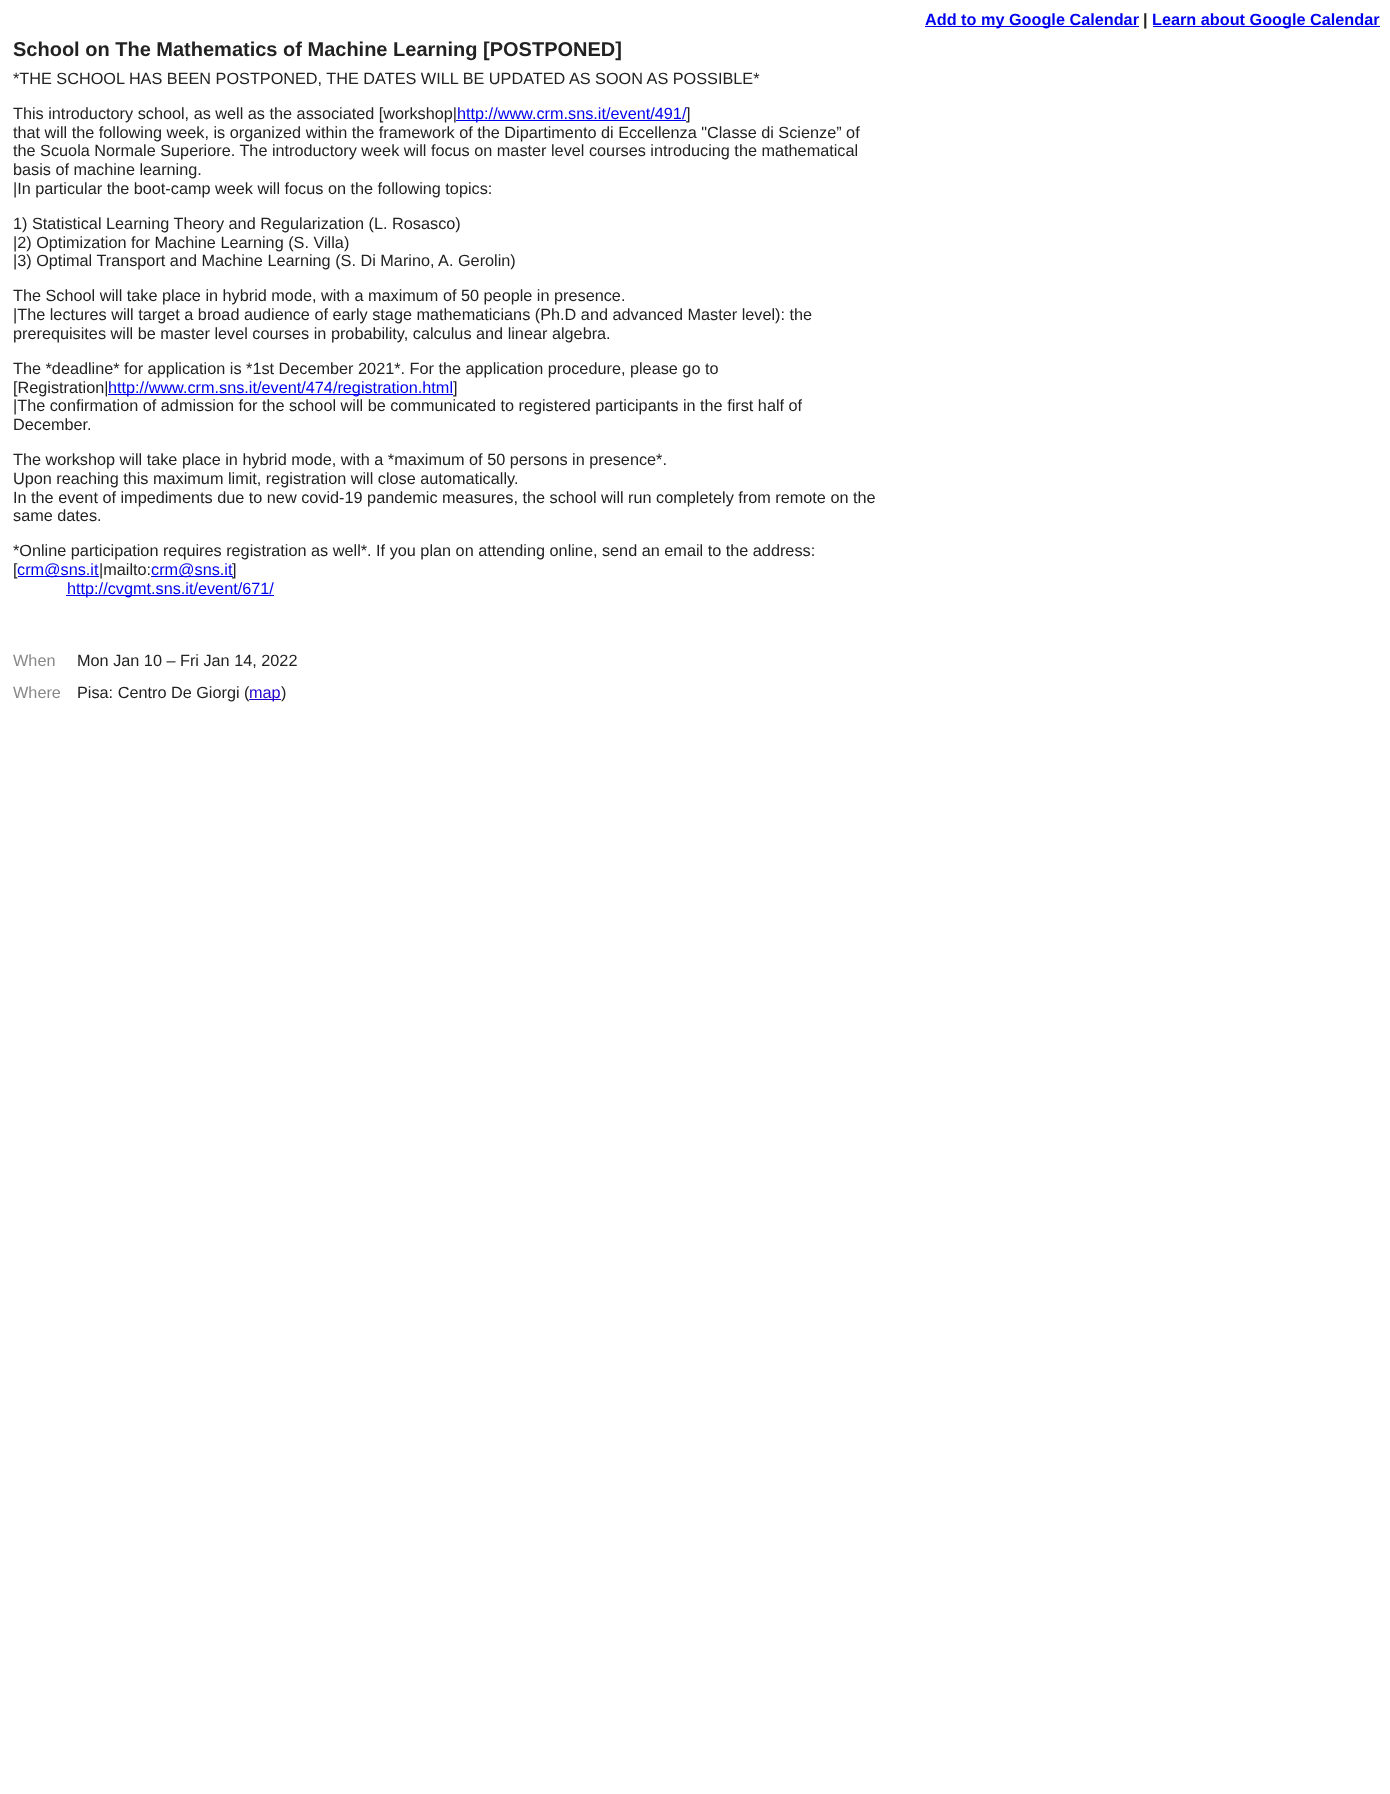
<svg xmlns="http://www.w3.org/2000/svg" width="1390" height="1794">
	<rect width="100%" height="100%" fill="#FFFFFF" />
	<rect x="925" y="26" width="214" height="1" fill="#0000EE" />
	<text x="925" y="25" font-family="Liberation Sans" font-size="16.25" font-weight="700" fill="#0000EE">Add to my Google Calendar</text>
	<text x="1143" y="25" font-family="Liberation Sans" font-size="16.25" font-weight="700" fill="#222222">|</text>
	<rect x="1153" y="26" width="227" height="1" fill="#0000EE" />
	<text x="1152" y="25" font-family="Liberation Sans" font-size="16.25" font-weight="700" fill="#0000EE">Learn about Google Calendar</text>
	<text x="13" y="56" font-family="Liberation Sans" font-size="20" font-weight="700" fill="#222222">School on The Mathematics of Machine Learning [POSTPONED]</text>
	<g font-family="Liberation Sans" font-size="16.25" fill="#222222">
		<text x="13" y="84">*THE SCHOOL HAS BEEN POSTPONED, THE DATES WILL BE UPDATED AS SOON AS POSSIBLE*</text>
		<text x="13" y="119">This introductory school, as well as the associated [workshop|</text>
	</g>
	<rect x="456" y="120" width="230" height="1" fill="#0000EE" />
	<text x="457" y="119" font-family="Liberation Sans" font-size="16.25" fill="#0000EE">http://www.crm.sns.it/event/491/</text>
	<g font-family="Liberation Sans" font-size="16.25" fill="#222222">
		<text x="686" y="119">]</text>
		<text x="13" y="138">that will the following week, is organized within the framework of the Dipartimento di Eccellenza "Classe di Scienze” of</text>
		<text x="13" y="156">the Scuola Normale Superiore. The introductory week will focus on master level courses introducing the mathematical</text>
		<text x="13" y="175">basis of machine learning.</text>
		<text x="13" y="194">|In particular the boot-camp week will focus on the following topics:</text>
		<text x="13" y="229">1) Statistical Learning Theory and Regularization (L. Rosasco)</text>
		<text x="13" y="248">|2) Optimization for Machine Learning (S. Villa)</text>
		<text x="13" y="266">|3) Optimal Transport and Machine Learning (S. Di Marino, A. Gerolin)</text>
		<text x="13" y="301">The School will take place in hybrid mode, with a maximum of 50 people in presence.</text>
		<text x="13" y="320">|The lectures will target a broad audience of early stage mathematicians (Ph.D and advanced Master level): the</text>
		<text x="13" y="339">prerequisites will be master level courses in probability, calculus and linear algebra.</text>
		<text x="13" y="374">The *deadline* for application is *1st December 2021*. For the application procedure, please go to</text>
		<text x="13" y="393">[Registration|</text>
	</g>
	<rect x="108" y="394" width="345" height="1" fill="#0000EE" />
	<text x="108" y="393" font-family="Liberation Sans" font-size="16.25" fill="#0000EE">http://www.crm.sns.it/event/474/registration.html</text>
	<g font-family="Liberation Sans" font-size="16.25" fill="#222222">
		<text x="453" y="393">]</text>
		<text x="13" y="411">|The confirmation of admission for the school will be communicated to registered participants in the first half of</text>
		<text x="13" y="430">December.</text>
		<text x="13" y="465">The workshop will take place in hybrid mode, with a *maximum of 50 persons in presence*.</text>
		<text x="13" y="484">Upon reaching this maximum limit, registration will close automatically.</text>
		<text x="13" y="503">In the event of impediments due to new covid-19 pandemic measures, the school will run completely from remote on the</text>
		<text x="13" y="521">same dates.</text>
		<text x="13" y="556">*Online participation requires registration as well*. If you plan on attending online, send an email to the address:</text>
		<text x="13" y="575">[</text>
	</g>
	<rect x="18" y="576" width="81" height="1" fill="#0000EE" />
	<text x="17" y="575" font-family="Liberation Sans" font-size="16.25" fill="#0000EE">crm@sns.it</text>
	<text x="99" y="575" font-family="Liberation Sans" font-size="16.25" fill="#222222">|mailto:</text>
	<rect x="151" y="576" width="82" height="1" fill="#0000EE" />
	<text x="151" y="575" font-family="Liberation Sans" font-size="16.25" fill="#0000EE">crm@sns.it</text>
	<text x="232" y="575" font-family="Liberation Sans" font-size="16.25" fill="#222222">]</text>
	<rect x="66" y="595" width="208" height="1" fill="#0000EE" />
	<text x="67" y="594" font-family="Liberation Sans" font-size="16.25" fill="#0000EE">http://cvgmt.sns.it/event/671/</text>
	<text x="13" y="666" font-family="Liberation Sans" font-size="16.25" fill="#888888">When</text>
	<text x="77" y="666" font-family="Liberation Sans" font-size="16.25" fill="#222222">Mon Jan 10 – Fri Jan 14, 2022</text>
	<text x="13" y="698" font-family="Liberation Sans" font-size="16.25" fill="#888888">Where</text>
	<text x="77" y="698" font-family="Liberation Sans" font-size="16.25" fill="#222222">Pisa: Centro De Giorgi (</text>
	<rect x="249" y="699" width="32" height="1" fill="#2200CC" />
	<text x="249" y="698" font-family="Liberation Sans" font-size="16.25" fill="#2200CC">map</text>
	<text x="281" y="698" font-family="Liberation Sans" font-size="16.25" fill="#222222">)</text>
</svg>
